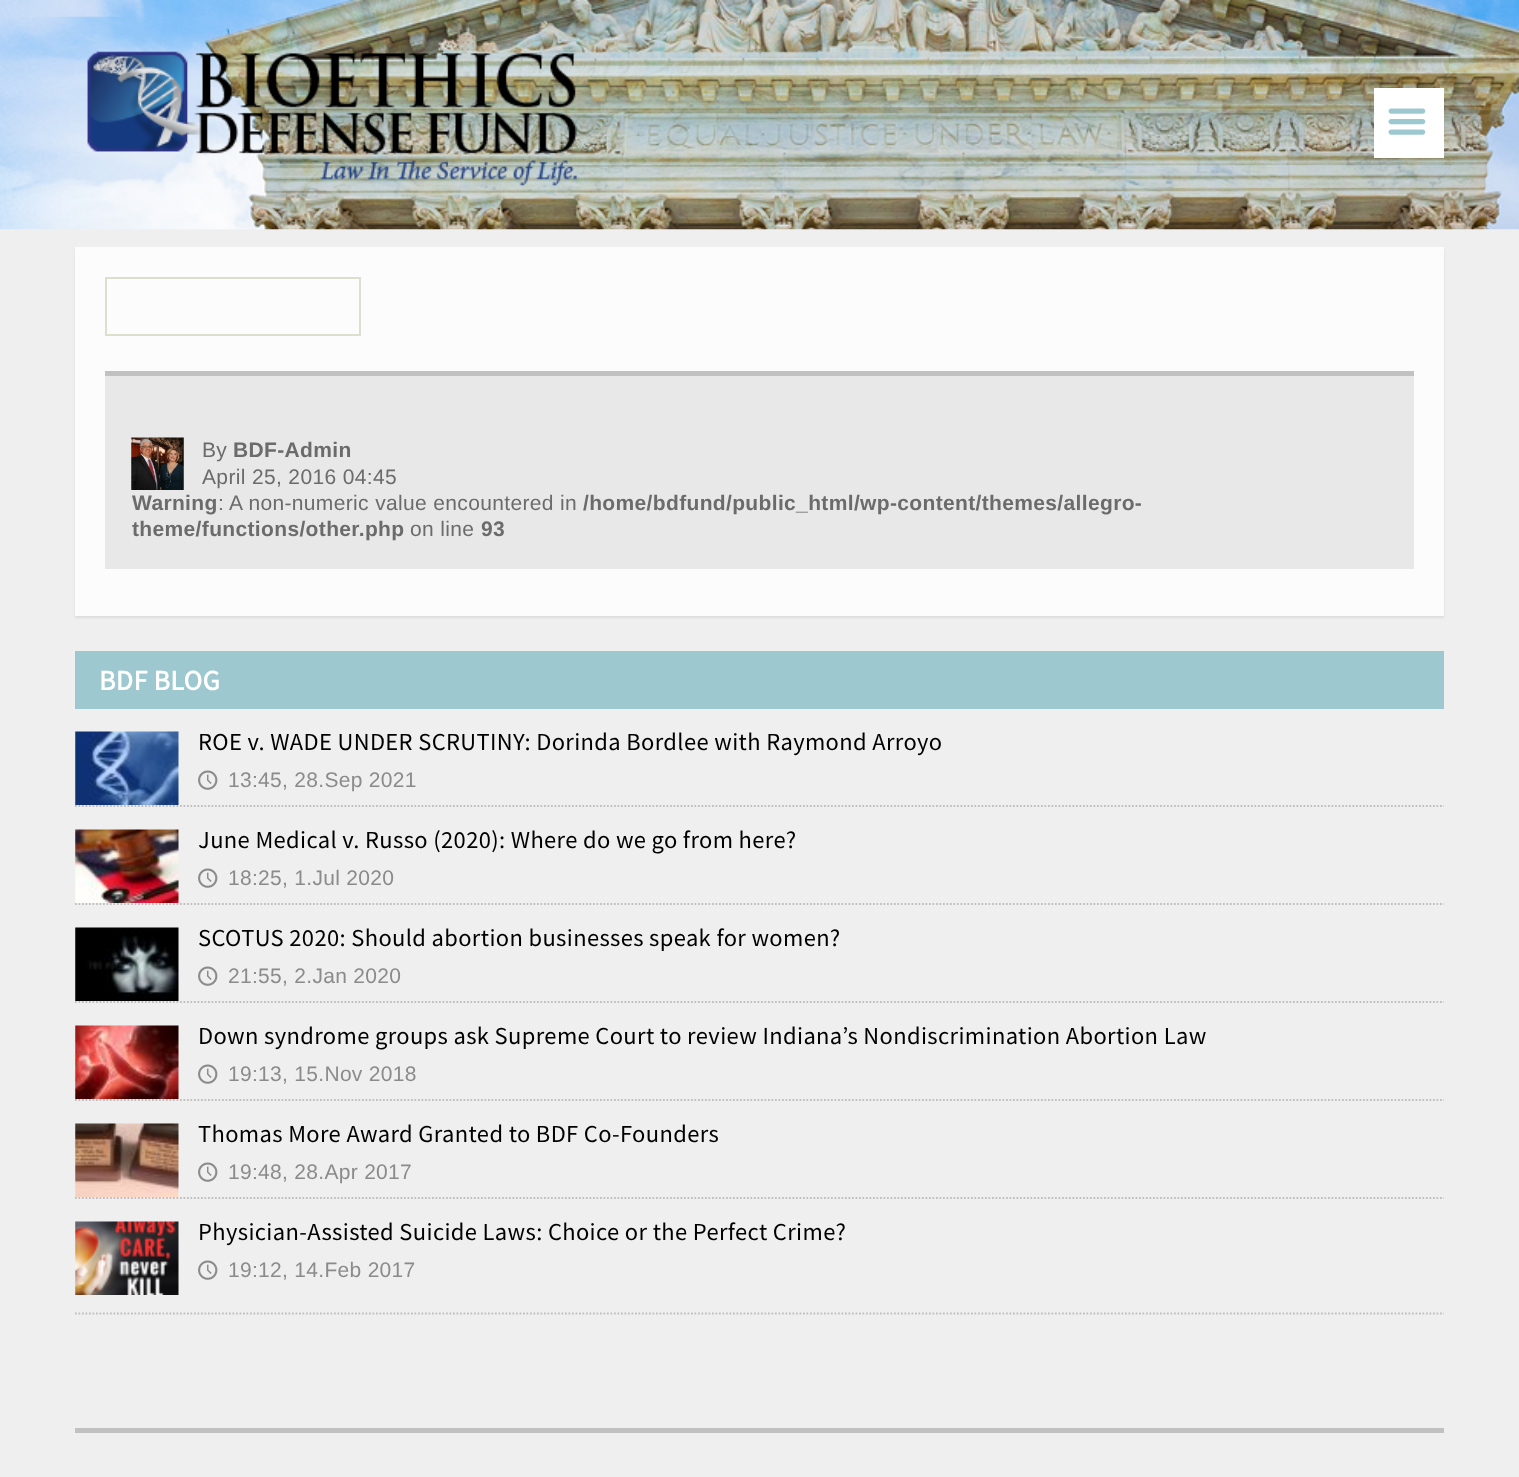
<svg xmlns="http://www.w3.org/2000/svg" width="1519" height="1477">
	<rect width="100%" height="100%" fill="#F0EFEF" />
	<image x="0" y="0" width="1519" height="230" href="assets/img1.png" />
	<image x="87" y="51" width="490" height="135" href="assets/img2.png" />
	<rect x="1374" y="88" width="70" height="70" fill="#FFFFFF" />
	<image x="1388" y="108" width="38" height="27" href="assets/img3.png" />
	<rect x="75" y="249" width="1369" height="369" fill="#000000" fill-opacity="0.08" filter="blur(1px)" />
	<rect x="75" y="247" width="1369" height="369" fill="#FCFCFC" />
	<rect x="106" y="278" width="254" height="57" fill="none" stroke="#DEDECF" stroke-width="2" />
	<rect x="105" y="376" width="1309" height="193" fill="#E8E8E8" />
	<rect x="105" y="371" width="1309" height="5" fill="#C1C1C1" />
	<image x="131" y="437" width="53" height="53" href="assets/img4.png" />
	<text x="202" y="457" font-family="Liberation Sans" font-size="21" letter-spacing="0.35" fill="#6B6B6B">By</text>
	<text x="233" y="457" font-family="Liberation Sans" font-size="21" font-weight="700" letter-spacing="0.35" fill="#6B6B6B">BDF-Admin</text>
	<text x="202" y="484" font-family="Liberation Sans" font-size="21" letter-spacing="0.35" fill="#6B6B6B">April 25, 2016 04:45</text>
	<text x="132" y="510" font-family="Liberation Sans" font-size="21" font-weight="700" letter-spacing="0.35" fill="#6B6B6B">Warning</text>
	<g font-family="Liberation Sans" font-size="21" letter-spacing="0.35" fill="#6B6B6B">
		<text x="218" y="510">:</text>
		<text x="229" y="510">A non-numeric value encountered in</text>
	</g>
	<g font-family="Liberation Sans" font-size="21" font-weight="700" letter-spacing="0.35" fill="#6B6B6B">
		<text x="583" y="510">/home/bdfund/public_html/wp-content/themes/allegro-</text>
		<text x="132" y="536">theme/functions/other.php</text>
	</g>
	<text x="410" y="536" font-family="Liberation Sans" font-size="21" letter-spacing="0.35" fill="#6B6B6B">on line</text>
	<text x="481" y="536" font-family="Liberation Sans" font-size="21" font-weight="700" letter-spacing="0.35" fill="#6B6B6B">93</text>
	<rect x="75" y="651" width="1369" height="58" fill="#9DC8CF" />
	<text x="99" y="690" font-family="Source Sans Pro" font-size="28" font-weight="700" letter-spacing="0.35" fill="#FFFFFF">BDF BLOG</text>
	<path d="M75 1313.5H1444" fill="none" stroke="#C0BFBF" stroke-width="1.8" stroke-dasharray="1.75 1.75" />
	<path d="M75 806H1444" fill="none" stroke="#C0BFBF" stroke-width="1.8" stroke-dasharray="1.75 1.75" />
	<image x="75" y="731" width="104" height="74" href="assets/img5.png" />
	<text x="198" y="750" font-family="Source Sans Pro" font-size="24.5" letter-spacing="0.37" fill="#000000">ROE v. WADE UNDER SCRUTINY: Dorinda Bordlee with Raymond Arroyo</text>
	<image x="198" y="770" width="20" height="20" href="assets/img6.png" />
	<text x="228" y="787" font-family="Liberation Sans" font-size="21" letter-spacing="0.3" fill="#8B8B8B">13:45, 28.Sep 2021</text>
	<path d="M75 904H1444" fill="none" stroke="#C0BFBF" stroke-width="1.8" stroke-dasharray="1.75 1.75" />
	<image x="75" y="829" width="104" height="74" href="assets/img7.png" />
	<text x="198" y="848" font-family="Source Sans Pro" font-size="24.5" letter-spacing="0.37" fill="#000000">June Medical v. Russo (2020): Where do we go from here?</text>
	<image x="198" y="868" width="20" height="20" href="assets/img6.png" />
	<text x="228" y="885" font-family="Liberation Sans" font-size="21" letter-spacing="0.3" fill="#8B8B8B">18:25, 1.Jul 2020</text>
	<path d="M75 1002H1444" fill="none" stroke="#C0BFBF" stroke-width="1.8" stroke-dasharray="1.75 1.75" />
	<image x="75" y="927" width="104" height="74" href="assets/img8.png" />
	<text x="198" y="946" font-family="Source Sans Pro" font-size="24.5" letter-spacing="0.37" fill="#000000">SCOTUS 2020: Should abortion businesses speak for women?</text>
	<image x="198" y="966" width="20" height="20" href="assets/img6.png" />
	<text x="228" y="983" font-family="Liberation Sans" font-size="21" letter-spacing="0.3" fill="#8B8B8B">21:55, 2.Jan 2020</text>
	<path d="M75 1100H1444" fill="none" stroke="#C0BFBF" stroke-width="1.8" stroke-dasharray="1.75 1.75" />
	<image x="75" y="1025" width="104" height="74" href="assets/img9.png" />
	<text x="198" y="1044" font-family="Source Sans Pro" font-size="24.5" letter-spacing="0.37" fill="#000000">Down syndrome groups ask Supreme Court to review Indiana’s Nondiscrimination Abortion Law</text>
	<image x="198" y="1064" width="20" height="20" href="assets/img6.png" />
	<text x="228" y="1081" font-family="Liberation Sans" font-size="21" letter-spacing="0.3" fill="#8B8B8B">19:13, 15.Nov 2018</text>
	<path d="M75 1198H1444" fill="none" stroke="#C0BFBF" stroke-width="1.8" stroke-dasharray="1.75 1.75" />
	<image x="75" y="1123" width="104" height="74" href="assets/img10.png" />
	<text x="198" y="1142" font-family="Source Sans Pro" font-size="24.5" letter-spacing="0.37" fill="#000000">Thomas More Award Granted to BDF Co-Founders</text>
	<image x="198" y="1162" width="20" height="20" href="assets/img6.png" />
	<text x="228" y="1179" font-family="Liberation Sans" font-size="21" letter-spacing="0.3" fill="#8B8B8B">19:48, 28.Apr 2017</text>
	<image x="75" y="1221" width="104" height="74" href="assets/img11.png" />
	<text x="198" y="1240" font-family="Source Sans Pro" font-size="24.5" letter-spacing="0.37" fill="#000000">Physician-Assisted Suicide Laws: Choice or the Perfect Crime?</text>
	<image x="198" y="1260" width="20" height="20" href="assets/img6.png" />
	<text x="228" y="1277" font-family="Liberation Sans" font-size="21" letter-spacing="0.3" fill="#8B8B8B">19:12, 14.Feb 2017</text>
	<rect x="75" y="1428" width="1369" height="5" fill="#C1C1C1" />
</svg>
